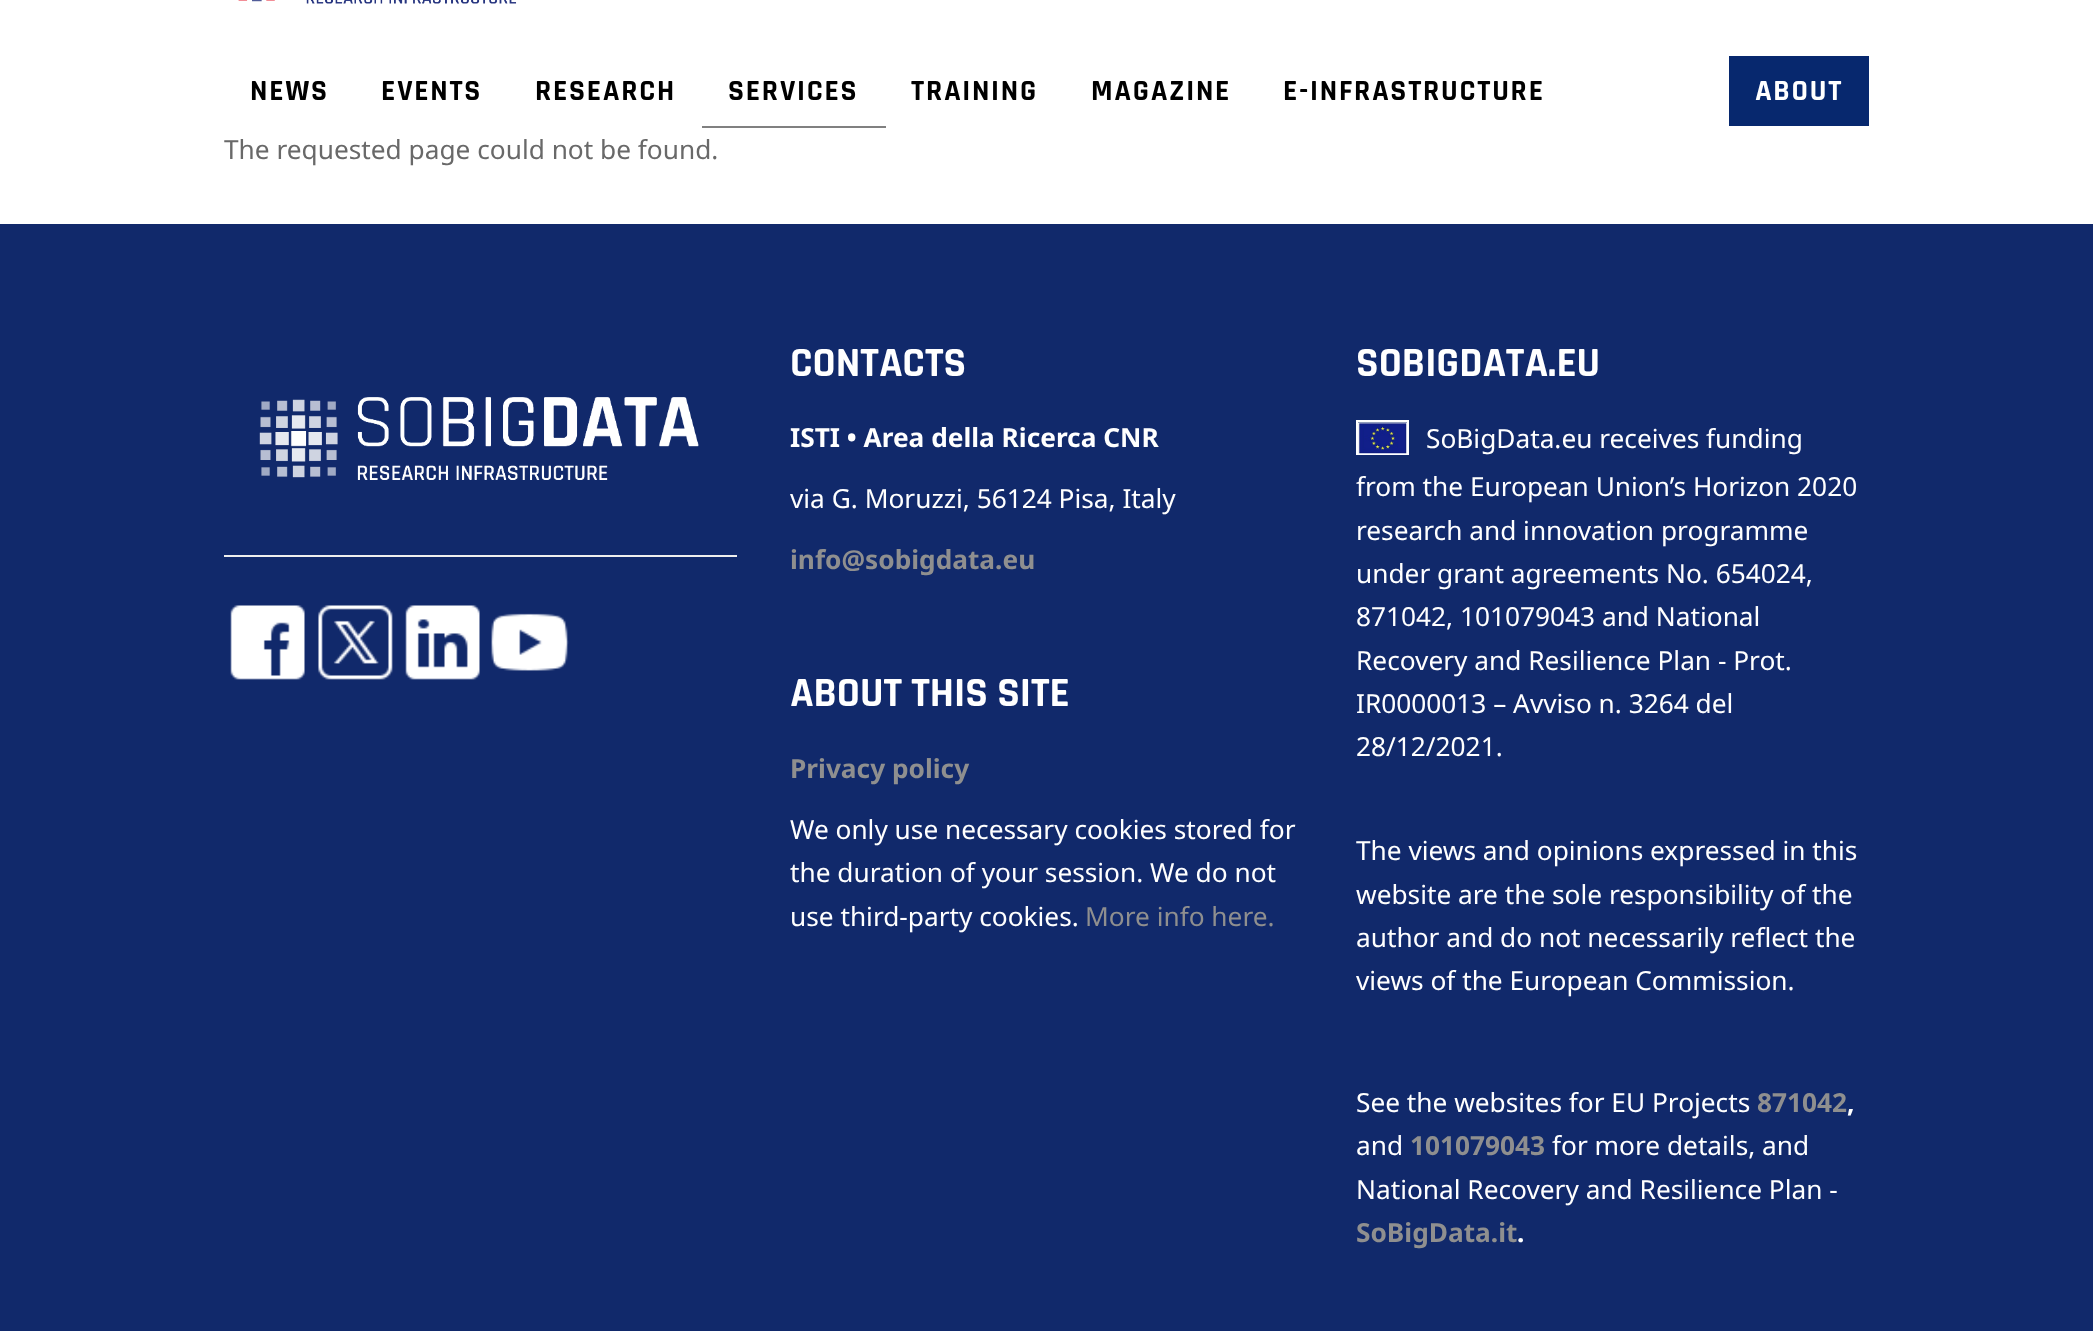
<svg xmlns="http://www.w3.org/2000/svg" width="2093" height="1331">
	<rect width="100%" height="100%" fill="#FFFFFF" />
	<image x="238" y="0" width="279" height="4" href="assets/img1.png" />
	<g font-family="Rajdhani" font-size="29.75" font-weight="700" letter-spacing="1.75" fill="#000000">
		<text x="250" y="100">NEWS</text>
		<text x="381" y="100">EVENTS</text>
		<text x="535" y="100">RESEARCH</text>
	</g>
	<rect x="702" y="126" width="184" height="2" fill="#808080" />
	<g font-family="Rajdhani" font-size="29.75" font-weight="700" letter-spacing="1.75" fill="#000000">
		<text x="728" y="100">SERVICES</text>
		<text x="911" y="100">TRAINING</text>
		<text x="1091" y="100">MAGAZINE</text>
		<text x="1283" y="100">E-INFRASTRUCTURE</text>
	</g>
	<rect x="1729" y="56" width="140" height="70" fill="#07286E" />
	<text x="1755" y="100" font-family="Rajdhani" font-size="29.75" font-weight="700" letter-spacing="1.75" fill="#FFFFFF">ABOUT</text>
	<text x="224" y="159" font-family="Noto Sans" font-size="26.25" fill="#696969">The requested page could not be found.</text>
	<rect x="0" y="224" width="2093" height="1107" fill="#11296B" />
	<image x="259" y="397" width="440" height="83" href="assets/img2.png" />
	<rect x="224" y="555" width="513" height="2" fill="#EEEEEE" />
	<image x="230" y="605" width="75" height="75" href="assets/img3.png" />
	<image x="318" y="605" width="75" height="75" href="assets/img4.png" />
	<image x="405" y="605" width="75" height="75" href="assets/img5.png" />
	<image x="491" y="613" width="78" height="58" href="assets/img6.png" />
	<text x="790" y="376" font-family="Rajdhani" font-size="42" font-weight="700" fill="#FFFFFF">CONTACTS</text>
	<text x="790" y="447" font-family="Noto Sans" font-size="26.25" font-weight="700" fill="#FFFFFF">ISTI • Area della Ricerca CNR</text>
	<text x="790" y="508" font-family="Noto Sans" font-size="26.25" fill="#FFFFFF">via G. Moruzzi, 56124 Pisa, Italy</text>
	<text x="790" y="569" font-family="Noto Sans" font-size="26.25" font-weight="700" fill="#8F8F8F">info@sobigdata.eu</text>
	<text x="790" y="706" font-family="Rajdhani" font-size="42" font-weight="700" fill="#FFFFFF">ABOUT THIS SITE</text>
	<text x="790" y="778" font-family="Noto Sans" font-size="26.25" font-weight="700" fill="#8F8F8F">Privacy policy</text>
	<g font-family="Noto Sans" font-size="26.25" fill="#FFFFFF">
		<text x="790" y="839">We only use necessary cookies stored for</text>
		<text x="790" y="882">the duration of your session. We do not</text>
		<text x="790" y="926">use third-party cookies.</text>
	</g>
	<text x="1085" y="926" font-family="Noto Sans" font-size="26.25" fill="#8F8F8F">More info here.</text>
	<text x="1356" y="376" font-family="Rajdhani" font-size="42" font-weight="700" fill="#FFFFFF">SOBIGDATA.EU</text>
	<rect x="1357" y="421" width="51" height="33" fill="none" stroke="#FFFFFF" stroke-width="2" />
	<image x="1358" y="422" width="49" height="32" href="assets/img7.png" />
	<g font-family="Noto Sans" font-size="26.25" fill="#FFFFFF">
		<text x="1426" y="448">SoBigData.eu receives funding</text>
		<text x="1356" y="496">from the European Union’s Horizon 2020</text>
		<text x="1356" y="540">research and innovation programme</text>
		<text x="1356" y="583">under grant agreements No. 654024,</text>
		<text x="1356" y="626">871042, 101079043 and National</text>
		<text x="1356" y="670">Recovery and Resilience Plan - Prot.</text>
		<text x="1356" y="713">IR0000013 – Avviso n. 3264 del</text>
		<text x="1356" y="756">28/12/2021.</text>
		<text x="1356" y="860">The views and opinions expressed in this</text>
		<text x="1356" y="904">website are the sole responsibility of the</text>
		<text x="1356" y="947">author and do not necessarily reflect the</text>
		<text x="1356" y="990">views of the European Commission.</text>
		<text x="1356" y="1112">See the websites for EU Projects</text>
	</g>
	<text x="1757" y="1112" font-family="Noto Sans" font-size="26.25" font-weight="700" fill="#8F8F8F">871042</text>
	<text x="1847" y="1112" font-family="Noto Sans" font-size="26.25" font-weight="700" fill="#FFFFFF">,</text>
	<text x="1356" y="1155" font-family="Noto Sans" font-size="26.25" fill="#FFFFFF">and</text>
	<text x="1410" y="1155" font-family="Noto Sans" font-size="26.25" font-weight="700" fill="#8F8F8F">101079043</text>
	<g font-family="Noto Sans" font-size="26.25" fill="#FFFFFF">
		<text x="1552" y="1155">for more details, and</text>
		<text x="1356" y="1199">National Recovery and Resilience Plan -</text>
	</g>
	<text x="1356" y="1242" font-family="Noto Sans" font-size="26.25" font-weight="700" fill="#8F8F8F">SoBigData.it</text>
	<text x="1517" y="1242" font-family="Noto Sans" font-size="26.25" font-weight="700" fill="#FFFFFF">.</text>
</svg>
